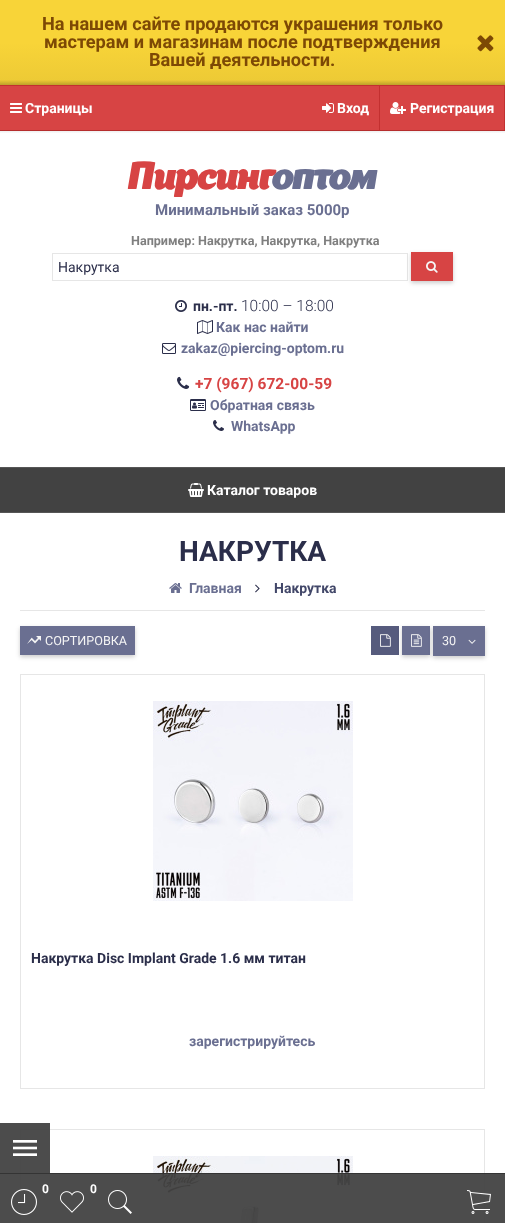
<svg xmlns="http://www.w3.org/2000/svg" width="505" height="1223">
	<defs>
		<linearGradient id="g1" gradientUnits="userSpaceOnUse" x1="253" y1="0" x2="253" y2="85"><stop offset="0.5" stop-color="#F8D438" /><stop offset="1" stop-color="#ECC935" /></linearGradient>
		<linearGradient id="g2" gradientUnits="userSpaceOnUse" x1="253" y1="80" x2="253" y2="85"><stop offset="0" stop-color="#EDCA35" /><stop offset="1" stop-color="#BDA12A" /></linearGradient>
		<linearGradient id="g3" gradientUnits="userSpaceOnUse" x1="253" y1="130" x2="253" y2="134"><stop offset="0" stop-color="#000000" stop-opacity="0.08" /><stop offset="1" stop-color="#000000" stop-opacity="0" /></linearGradient>
	</defs>
	<rect width="100%" height="100%" fill="#FFFFFF" />
	<rect x="0" y="0" width="505" height="80" fill="url(#g1)" />
	<g font-family="Roboto" font-size="18.2" font-weight="700" fill="#7D4905">
		<text x="42" y="30">На нашем сайте продаются украшения только</text>
		<text x="44" y="48">мастерам и магазинам после подтверждения</text>
		<text x="149" y="66">Вашей деятельности.</text>
	</g>
	<image x="477" y="35" width="17" height="17" href="assets/img1.png" />
	<rect x="0" y="80" width="505" height="5" fill="url(#g2)" />
	<rect x="0" y="86" width="504" height="44" fill="#D74444" />
	<rect x="0" y="85" width="505" height="1" fill="#C33030" />
	<rect x="0" y="130" width="505" height="1" fill="#C33030" />
	<image x="10" y="103" width="12" height="10" href="assets/img2.png" />
	<text x="25" y="113" font-family="Roboto" font-size="14" font-weight="700" fill="#FFFFFF">Страницы</text>
	<rect x="379" y="86" width="1" height="44" fill="#C33030" />
	<image x="322" y="103" width="12" height="10" href="assets/img3.png" />
	<text x="337" y="113" font-family="Roboto" font-size="14" font-weight="700" fill="#FFFFFF">Вход</text>
	<rect x="504" y="86" width="1" height="44" fill="#C33030" />
	<image x="390" y="102" width="16" height="12" href="assets/img4.png" />
	<text x="410" y="113" font-family="Roboto" font-size="14" font-weight="700" fill="#FFFFFF">Регистрация</text>
	<rect x="0" y="130" width="505" height="3" fill="url(#g3)" />
	<text x="129" y="189" font-family="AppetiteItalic" font-size="36" font-weight="700" font-style="italic" fill="#D74444">Пирсинг</text>
	<text x="272" y="189" font-family="AppetiteItalic" font-size="36" font-weight="700" font-style="italic" fill="#6A6F91">оптом</text>
	<text x="155" y="215" font-family="Roboto" font-size="15" font-weight="700" fill="#6A6F91">Минимальный заказ 5000р</text>
	<text x="131" y="245" font-family="Roboto" font-size="12.6" font-weight="700" fill="#7F7F7F">Например: Накрутка, Накрутка, Накрутка</text>
	<rect x="52.5" y="253.5" width="355" height="27" fill="none" stroke="#E6E6E6" />
	<text x="58" y="272" font-family="Roboto" font-size="14" fill="#2B2E4A">Накрутка</text>
	<rect x="411" y="254" width="42" height="29" fill="#000000" fill-opacity="0.2" filter="blur(2px)" />
	<rect x="411" y="252" width="42" height="29" fill="#D74444" />
	<image x="426" y="261" width="12" height="12" href="assets/img5.png" />
	<image x="175" y="300" width="12" height="12" href="assets/img6.png" />
	<text x="193" y="311" font-family="Roboto" font-size="14" font-weight="700" fill="#2B2E4A">пн.-пт.</text>
	<text x="241" y="311" font-family="Roboto" font-size="15.5" font-weight="300" fill="#2B2E4A">10:00 – 18:00</text>
	<image x="197" y="320" width="16" height="14" href="assets/img7.png" />
	<text x="216" y="332" font-family="Roboto" font-size="14" font-weight="700" fill="#6A6F91">Как нас найти</text>
	<image x="162" y="343" width="14" height="11" href="assets/img8.png" />
	<text x="181" y="353" font-family="Roboto" font-size="14" font-weight="700" fill="#6A6F91">zakaz@piercing-optom.ru</text>
	<image x="177" y="376" width="13" height="13" href="assets/img9.png" />
	<text x="195" y="389" font-family="Roboto" font-size="15.5" font-weight="700" fill="#D74444">+7 (967) 672-00-59</text>
	<image x="190" y="399" width="16" height="12" href="assets/img10.png" />
	<text x="210" y="410" font-family="Roboto" font-size="14" font-weight="700" fill="#6A6F91">Обратная связь</text>
	<image x="213" y="420" width="11" height="11" href="assets/img11.png" />
	<text x="231" y="431" font-family="Roboto" font-size="14" font-weight="700" fill="#6A6F91">WhatsApp</text>
	<rect x="0" y="468" width="505" height="44" fill="#424242" />
	<rect x="0" y="467" width="505" height="1" fill="#565656" />
	<rect x="0" y="512" width="505" height="1" fill="#565656" />
	<image x="188" y="483" width="16" height="14" href="assets/img12.png" />
	<text x="207" y="495" font-family="Roboto" font-size="14" font-weight="700" fill="#FFFFFF">Каталог товаров</text>
	<text x="179" y="561" font-family="Roboto" font-size="28" font-weight="700" fill="#2B2E4A">НАКРУТКА</text>
	<rect x="20" y="610" width="465" height="1" fill="#E6E6E6" />
	<image x="169" y="583" width="13" height="10" href="assets/img13.png" />
	<text x="189" y="593" font-family="Roboto" font-size="14" font-weight="700" fill="#6A6F91">Главная</text>
	<image x="255" y="584" width="5" height="9" href="assets/img14.png" />
	<text x="274" y="593" font-family="Roboto" font-size="14" font-weight="700" fill="#424769">Накрутка</text>
	<rect x="20" y="628" width="115" height="29" fill="#000000" fill-opacity="0.2" filter="blur(2px)" />
	<rect x="20" y="626" width="115" height="29" fill="#6A6F91" />
	<image x="27" y="636" width="14" height="8" href="assets/img15.png" />
	<text x="45" y="645" font-family="Roboto" font-size="12.6" fill="#F5F5F5">СОРТИРОВКА</text>
	<rect x="371" y="626" width="28" height="29" fill="#565B7D" />
	<image x="380" y="634" width="11" height="13" href="assets/img16.png" />
	<rect x="402" y="628" width="28" height="29" fill="#000000" fill-opacity="0.2" filter="blur(2px)" />
	<rect x="402" y="626" width="28" height="29" fill="#6A6F91" />
	<image x="411" y="634" width="11" height="13" href="assets/img17.png" />
	<rect x="433" y="628" width="52" height="30" fill="#000000" fill-opacity="0.2" filter="blur(2px)" />
	<rect x="433" y="626" width="52" height="30" fill="#6A6F91" />
	<text x="442" y="645" font-family="Roboto" font-size="12.6" fill="#F5F5F5">30</text>
	<image x="468" y="639" width="8" height="5" href="assets/img18.png" />
	<rect x="20.5" y="674.5" width="464" height="414" fill="none" stroke="#E6E6E6" />
	<image x="153" y="701" width="200" height="200" href="assets/img19.png" />
	<text x="31" y="963" font-family="Roboto" font-size="14" font-weight="700" fill="#2B2E4A">Накрутка Disc Implant Grade 1.6 мм титан</text>
	<text x="189" y="1046" font-family="Roboto" font-size="14" font-weight="700" fill="#6A6F91">зарегистрируйтесь</text>
	<rect x="20.5" y="1129.5" width="464" height="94" fill="none" stroke="#E6E6E6" />
	<image x="153" y="1156" width="200" height="67" href="assets/img20.png" />
	<rect x="0" y="1123" width="50" height="50" fill="#424242" fill-opacity="0.95" />
	<image x="13" y="1140" width="24" height="16" href="assets/img21.png" />
	<rect x="0" y="1173" width="505" height="50" fill="#424242" fill-opacity="0.95" />
	<rect x="0" y="1173" width="505" height="1" fill="#333333" fill-opacity="0.95" />
	<image x="11" y="1189" width="26" height="26" href="assets/img22.png" />
	<g font-family="Roboto" font-size="12" font-weight="700" fill="#FFFFFF">
		<text x="42" y="1193">0</text>
		<text x="90" y="1193">0</text>
	</g>
	<image x="60" y="1191" width="24" height="22" href="assets/img23.png" />
	<image x="108" y="1190" width="24" height="24" href="assets/img24.png" />
	<image x="467" y="1190" width="24" height="24" href="assets/img25.png" />
</svg>
